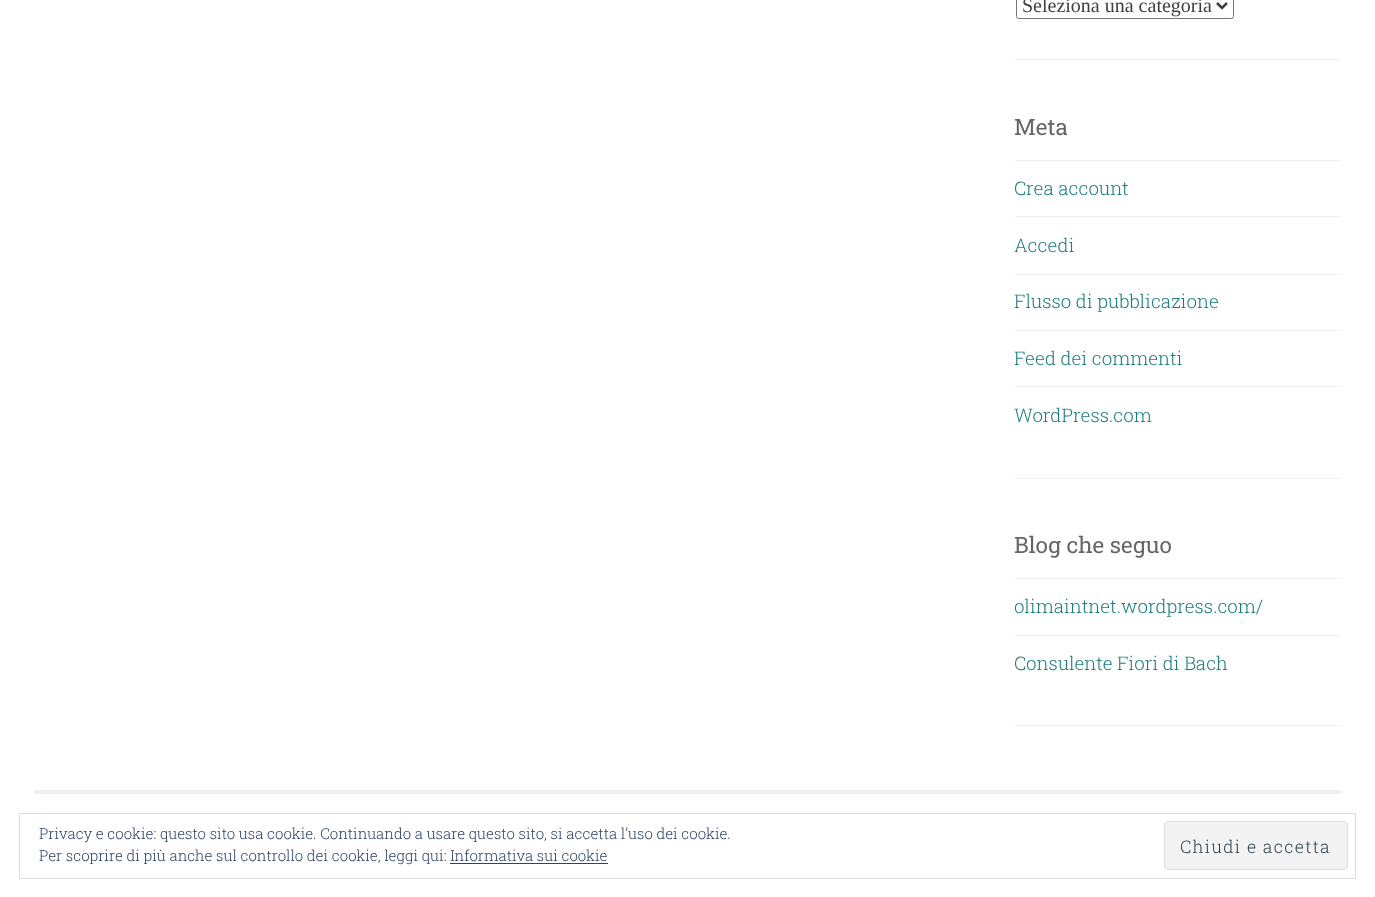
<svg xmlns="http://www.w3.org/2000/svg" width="1375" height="897">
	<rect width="100%" height="100%" fill="#FFFFFF" />
	<rect x="1015" y="59" width="326" height="1" fill="#EEEEEE" />
	<rect x="1016.5" y="-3.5" width="217" height="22" rx="2" fill="none" stroke="#767676" />
	<path d="M1217 3L1222 8L1227 3" fill="none" stroke="#404040" stroke-width="2.5" />
	<text x="1022" y="12" font-family="Liberation Serif" font-size="20" fill="#404040">Seleziona una categoria</text>
	<rect x="1015" y="478" width="326" height="1" fill="#EEEEEE" />
	<text x="1014" y="135" font-family="Roboto Slab" font-size="22.5" fill="#666666">Meta</text>
	<rect x="1015" y="160" width="326" height="1" fill="#EEEEEE" />
	<text x="1014" y="195" font-family="Roboto Slab" font-size="18.75" font-weight="300" fill="#1C7C7C">Crea account</text>
	<rect x="1015" y="216" width="326" height="1" fill="#EEEEEE" />
	<text x="1014" y="252" font-family="Roboto Slab" font-size="18.75" font-weight="300" fill="#1C7C7C">Accedi</text>
	<rect x="1015" y="274" width="326" height="1" fill="#EEEEEE" />
	<text x="1014" y="308" font-family="Roboto Slab" font-size="18.75" font-weight="300" fill="#1C7C7C">Flusso di pubblicazione</text>
	<rect x="1015" y="330" width="326" height="1" fill="#EEEEEE" />
	<text x="1014" y="365" font-family="Roboto Slab" font-size="18.75" font-weight="300" fill="#1C7C7C">Feed dei commenti</text>
	<rect x="1015" y="386" width="326" height="1" fill="#EEEEEE" />
	<text x="1014" y="422" font-family="Roboto Slab" font-size="18.75" font-weight="300" fill="#1C7C7C">WordPress.com</text>
	<rect x="1015" y="725" width="326" height="1" fill="#EEEEEE" />
	<text x="1014" y="553" font-family="Roboto Slab" font-size="22.5" fill="#666666">Blog che seguo</text>
	<rect x="1015" y="578" width="326" height="1" fill="#EEEEEE" />
	<text x="1014" y="613" font-family="Roboto Slab" font-size="18.75" font-weight="300" fill="#1C7C7C">olimaintnet.wordpress.com/</text>
	<rect x="1015" y="635" width="326" height="1" fill="#EEEEEE" />
	<text x="1014" y="670" font-family="Roboto Slab" font-size="18.75" font-weight="300" fill="#1C7C7C">Consulente Fiori di Bach</text>
	<rect x="34" y="790" width="1307" height="4" fill="#EEEEEE" />
	<rect x="19.5" y="813.5" width="1336" height="65" fill="none" stroke="#DEDEDE" />
	<text x="39" y="839" font-family="Roboto Slab" font-size="15" font-weight="300" fill="#2E4467">Privacy e cookie: questo sito usa cookie. Continuando a usare questo sito, si accetta l’uso dei cookie.</text>
	<rect x="1164.5" y="821.5" width="183" height="48" rx="3.5" fill="#F3F3F3" stroke="#DEDEDE" />
	<text x="1180" y="853" font-family="Roboto Slab" font-size="17.5" font-weight="300" letter-spacing="1.25" fill="#2E4453">Chiudi e accetta</text>
	<text x="39" y="861" font-family="Roboto Slab" font-size="15" font-weight="300" fill="#2E4467">Per scoprire di più anche sul controllo dei cookie, leggi qui: Informativa sui cookie</text>
	<rect x="450" y="863" width="158" height="1" fill="#2E4467" />
</svg>
